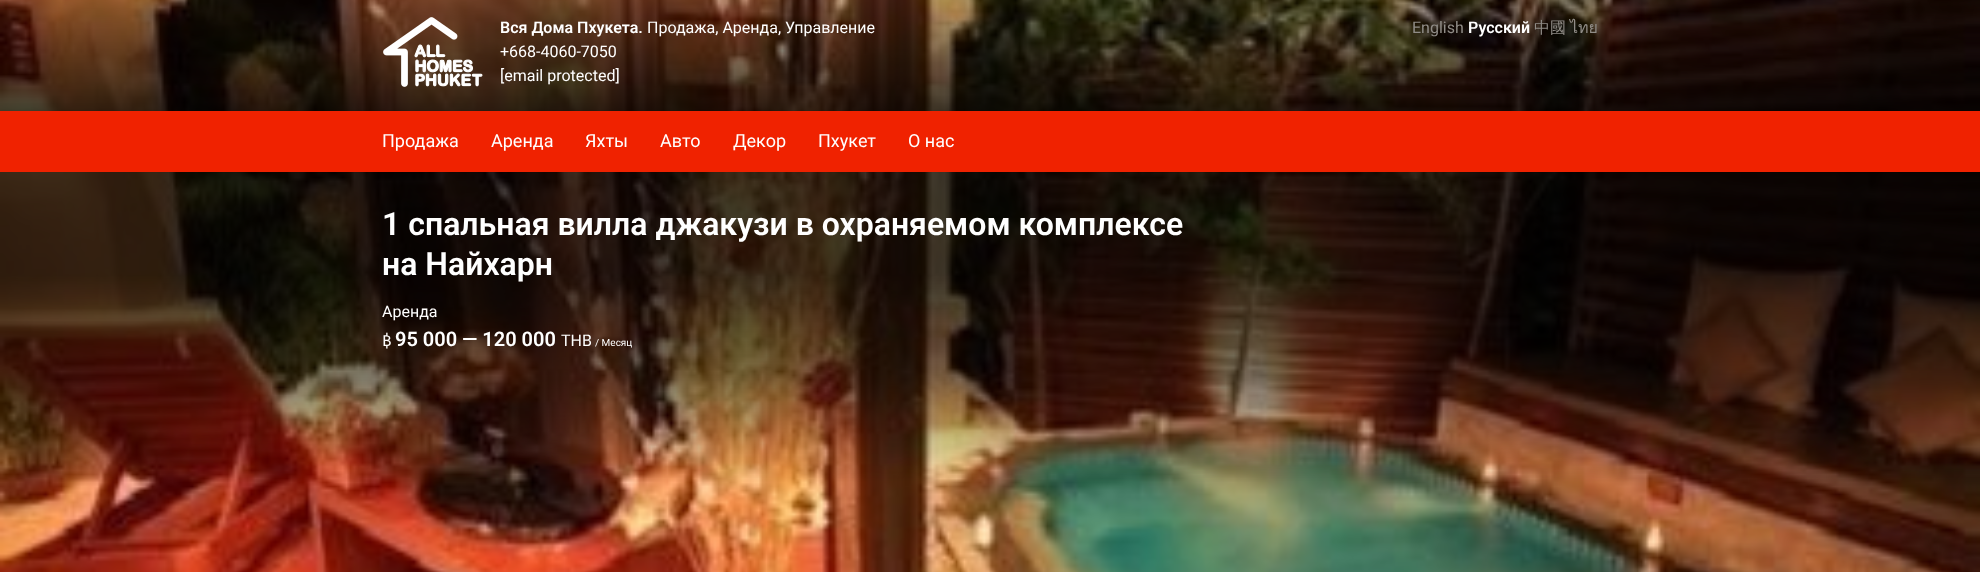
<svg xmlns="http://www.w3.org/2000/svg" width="1980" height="572">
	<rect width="100%" height="100%" fill="#FFFFFF" />
	<image x="0" y="0" width="1980" height="572" href="assets/img1.png" />
	<image x="383" y="17" width="100" height="70" href="assets/img2.png" />
	<text x="500" y="33" font-family="Roboto" font-size="16" font-weight="600" fill="#FFFFFF">Вся Дома Пхукета.</text>
	<g font-family="Roboto" font-size="16" fill="#FFFFFF">
		<text x="647" y="33">Продажа, Аренда, Управление</text>
		<text x="500" y="57">+668-4060-7050</text>
		<text x="500" y="81">[email protected]</text>
	</g>
	<text x="1412" y="33" font-family="Roboto" font-size="16" fill="#908C87">English</text>
	<text x="1468" y="33" font-family="Roboto" font-size="16" font-weight="600" fill="#FFFFFF">Русский</text>
	<text x="1534" y="33" font-family="WenQuanYi Zen Hei" font-size="16" font-weight="500" fill="#908C87">中國</text>
	<text x="1570" y="33" font-family="Loma" font-size="16" fill="#908C87">ไทย</text>
	<rect x="0" y="111" width="1980" height="61" fill="#F02200" />
	<g font-family="Roboto" font-size="18" fill="#FFFFFF">
		<text x="382" y="147">Продажа</text>
		<text x="491" y="147">Аренда</text>
		<text x="585" y="147">Яхты</text>
		<text x="660" y="147">Авто</text>
		<text x="733" y="147">Декор</text>
		<text x="818" y="147">Пхукет</text>
		<text x="908" y="147">О нас</text>
	</g>
	<g font-family="Roboto" font-size="32" font-weight="600" fill="#FFFFFF">
		<text x="382" y="235">1 спальная вилла джакузи в охраняемом комплексе</text>
		<text x="382" y="275">на Найхарн</text>
	</g>
	<text x="382" y="317" font-family="Roboto" font-size="16" fill="#FFFFFF">Аренда</text>
	<text x="382" y="346" font-family="Fira Sans" font-size="16" fill="#FFFFFF">฿</text>
	<text x="395" y="346" font-family="Roboto" font-size="20" font-weight="600" fill="#FFFFFF">95 000 — 120 000</text>
	<text x="561" y="346" font-family="Roboto" font-size="16" fill="#FFFFFF">THB</text>
	<text x="595" y="346" font-family="Roboto" font-size="10" fill="#FFFFFF">/ Месяц</text>
</svg>
